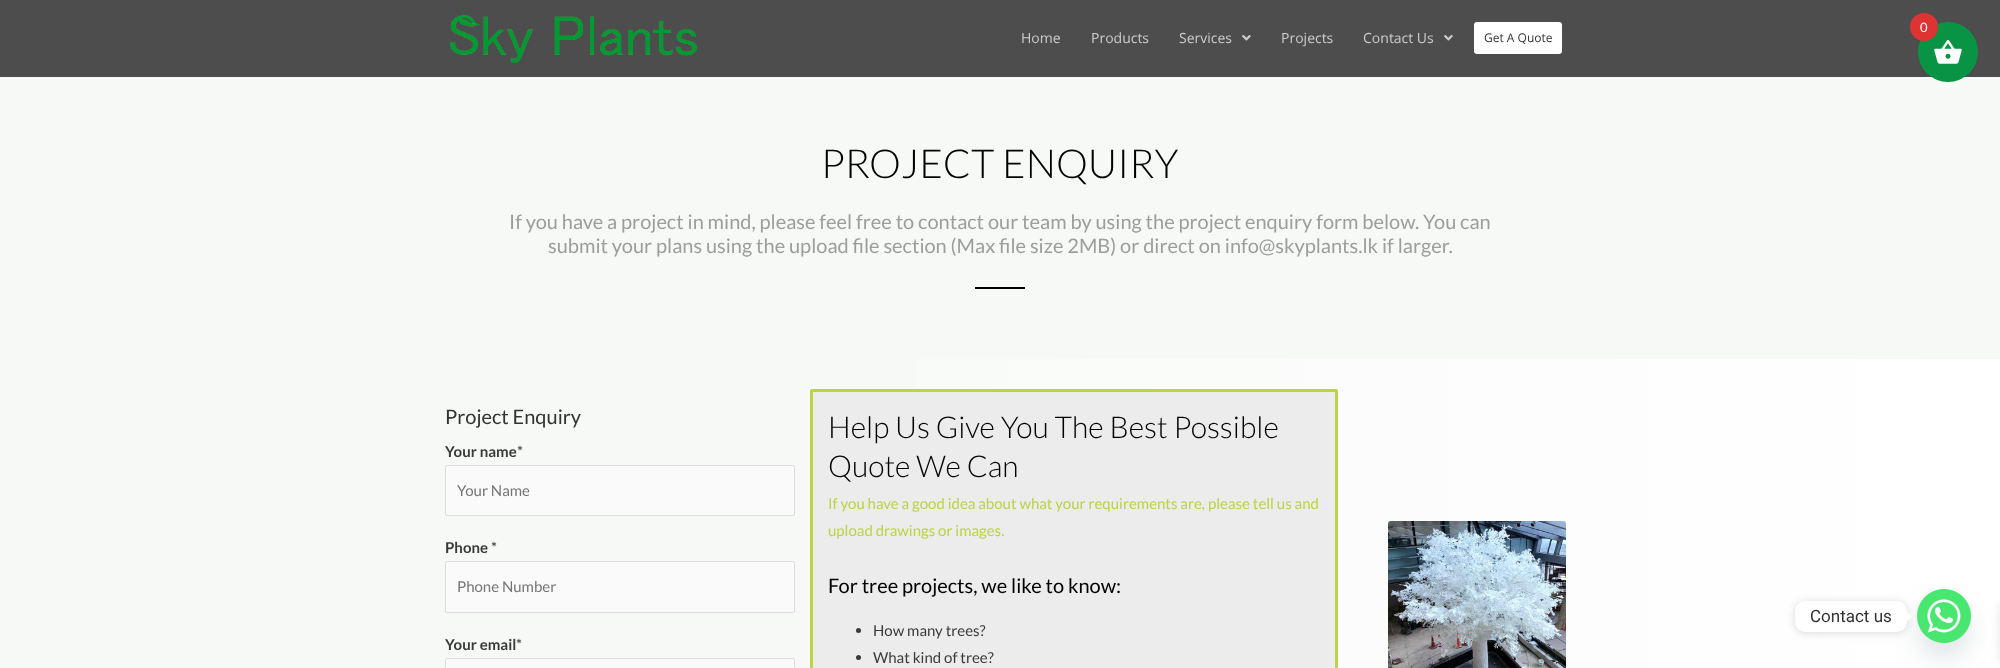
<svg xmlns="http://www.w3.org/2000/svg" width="2000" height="668">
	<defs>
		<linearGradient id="g1" gradientUnits="userSpaceOnUse" x1="2000" y1="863" x2="0" y2="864"><stop offset="0" stop-color="#FFFFFF" /><stop offset="0.75" stop-color="#F6F9F6" /></linearGradient>
	</defs>
	<rect width="100%" height="100%" fill="#F6F9F6" />
	<rect x="0" y="0" width="2000" height="77" fill="#4D4D4D" />
	<circle cx="1948" cy="52" r="30" fill="#089444" />
	<image x="1934" y="40" width="28" height="24" href="assets/img1.png" />
	<circle cx="1924" cy="27" r="14" fill="#DD3333" />
	<text x="1920" y="32" font-family="Lato" font-size="13" fill="#FFFFFF">0</text>
	<rect x="916" y="359" width="1084" height="309" fill="url(#g1)" />
	<rect x="2000" y="605" width="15" height="58" fill="#000000" fill-opacity="0.1" filter="blur(5px)" />
	<image x="450" y="15" width="247" height="48" href="assets/img2.png" />
	<g font-family="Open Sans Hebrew" font-size="14" fill="#CDCDCD">
		<text x="1021" y="43">Home</text>
		<text x="1091" y="43">Products</text>
		<text x="1179" y="43">Services</text>
	</g>
	<image x="1242" y="35" width="9" height="6" href="assets/img3.png" />
	<g font-family="Open Sans Hebrew" font-size="14" fill="#CDCDCD">
		<text x="1281" y="43">Projects</text>
		<text x="1363" y="43">Contact Us</text>
	</g>
	<image x="1444" y="35" width="9" height="6" href="assets/img3.png" />
	<rect x="1474" y="22" width="88" height="32" rx="3" fill="#FFFFFF" />
	<text x="1484" y="42" font-family="Open Sans Hebrew" font-size="12" fill="#333333">Get A Quote</text>
	<text x="821" y="178" font-family="Lato" font-size="40" font-weight="300" fill="#000000">PROJECT ENQUIRY</text>
	<g font-family="Lato" font-size="20" fill="#9D9D9D">
		<text x="509" y="229">If you have a project in mind, please feel free to contact our team by using the project enquiry form below. You can</text>
		<text x="548" y="253">submit your plans using the upload file section (Max file size 2MB) or direct on info@skyplants.lk if larger.</text>
	</g>
	<rect x="975" y="287" width="50" height="2" fill="#000000" />
	<text x="445" y="424" font-family="Lato" font-size="20" fill="#333333">Project Enquiry</text>
	<text x="445" y="457" font-family="Lato" font-size="15" font-weight="700" fill="#3A3A3A">Your name</text>
	<text x="517" y="457" font-family="Lato" font-size="15" fill="#3A3A3A">*</text>
	<rect x="445.5" y="465.5" width="349" height="50" rx="1.5" fill="#FAFAFA" stroke="#DDDDDD" />
	<text x="457" y="496" font-family="Lato" font-size="15" fill="#757575">Your Name</text>
	<text x="445" y="553" font-family="Lato" font-size="15" font-weight="700" fill="#3A3A3A">Phone</text>
	<text x="491" y="553" font-family="Lato" font-size="15" fill="#3A3A3A">*</text>
	<rect x="445.5" y="561.5" width="349" height="51" rx="1.5" fill="#FAFAFA" stroke="#DDDDDD" />
	<text x="457" y="592" font-family="Lato" font-size="15" fill="#757575">Phone Number</text>
	<text x="445" y="650" font-family="Lato" font-size="15" font-weight="700" fill="#3A3A3A">Your email</text>
	<text x="516" y="650" font-family="Lato" font-size="15" fill="#3A3A3A">*</text>
	<rect x="445.5" y="658.5" width="349" height="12" rx="1.5" fill="#FAFAFA" stroke="#DDDDDD" />
	<rect x="811.5" y="390.5" width="525" height="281" rx="0.5" fill="#ECECEC" stroke="#BBD344" stroke-width="3" />
	<g font-family="Lato" font-size="30" font-weight="300" fill="#000000">
		<text x="828" y="438">Help Us Give You The Best Possible</text>
		<text x="828" y="477">Quote We Can</text>
	</g>
	<g font-family="Lato" font-size="15" fill="#BBD344">
		<text x="828" y="509">If you have a good idea about what your requirements are, please tell us and</text>
		<text x="828" y="536">upload drawings or images.</text>
	</g>
	<text x="828" y="593" font-family="Lato" font-size="20" fill="#000000">For tree projects, we like to know:</text>
	<circle cx="858.5" cy="630.5" r="2.5" fill="#3A3A3A" />
	<text x="873" y="636" font-family="Lato" font-size="15" fill="#3A3A3A">How many trees?</text>
	<circle cx="858.5" cy="657.5" r="2.5" fill="#3A3A3A" />
	<text x="873" y="663" font-family="Lato" font-size="15" fill="#3A3A3A">What kind of tree?</text>
	<image x="1388" y="521" width="178" height="147" href="assets/img4.png" />
	<rect x="1917" y="605" width="54" height="54" rx="27" fill="#49687E" fill-opacity="0.16" filter="blur(12px)" />
	<image x="1917" y="589" width="54" height="54" href="assets/img5.png" />
	<rect x="1795" y="602" width="112" height="31" rx="10" fill="#000000" fill-opacity="0.15" filter="blur(4px)" />
	<rect x="1795" y="601" width="112" height="31" rx="10" fill="#FFFFFF" />
	<text x="1810" y="622" font-family="Roboto" font-size="17" fill="#333333">Contact us</text>
	<path d="M1907 621.5V611.5L1912 616.5Z" fill="#FFFFFF" />
</svg>
